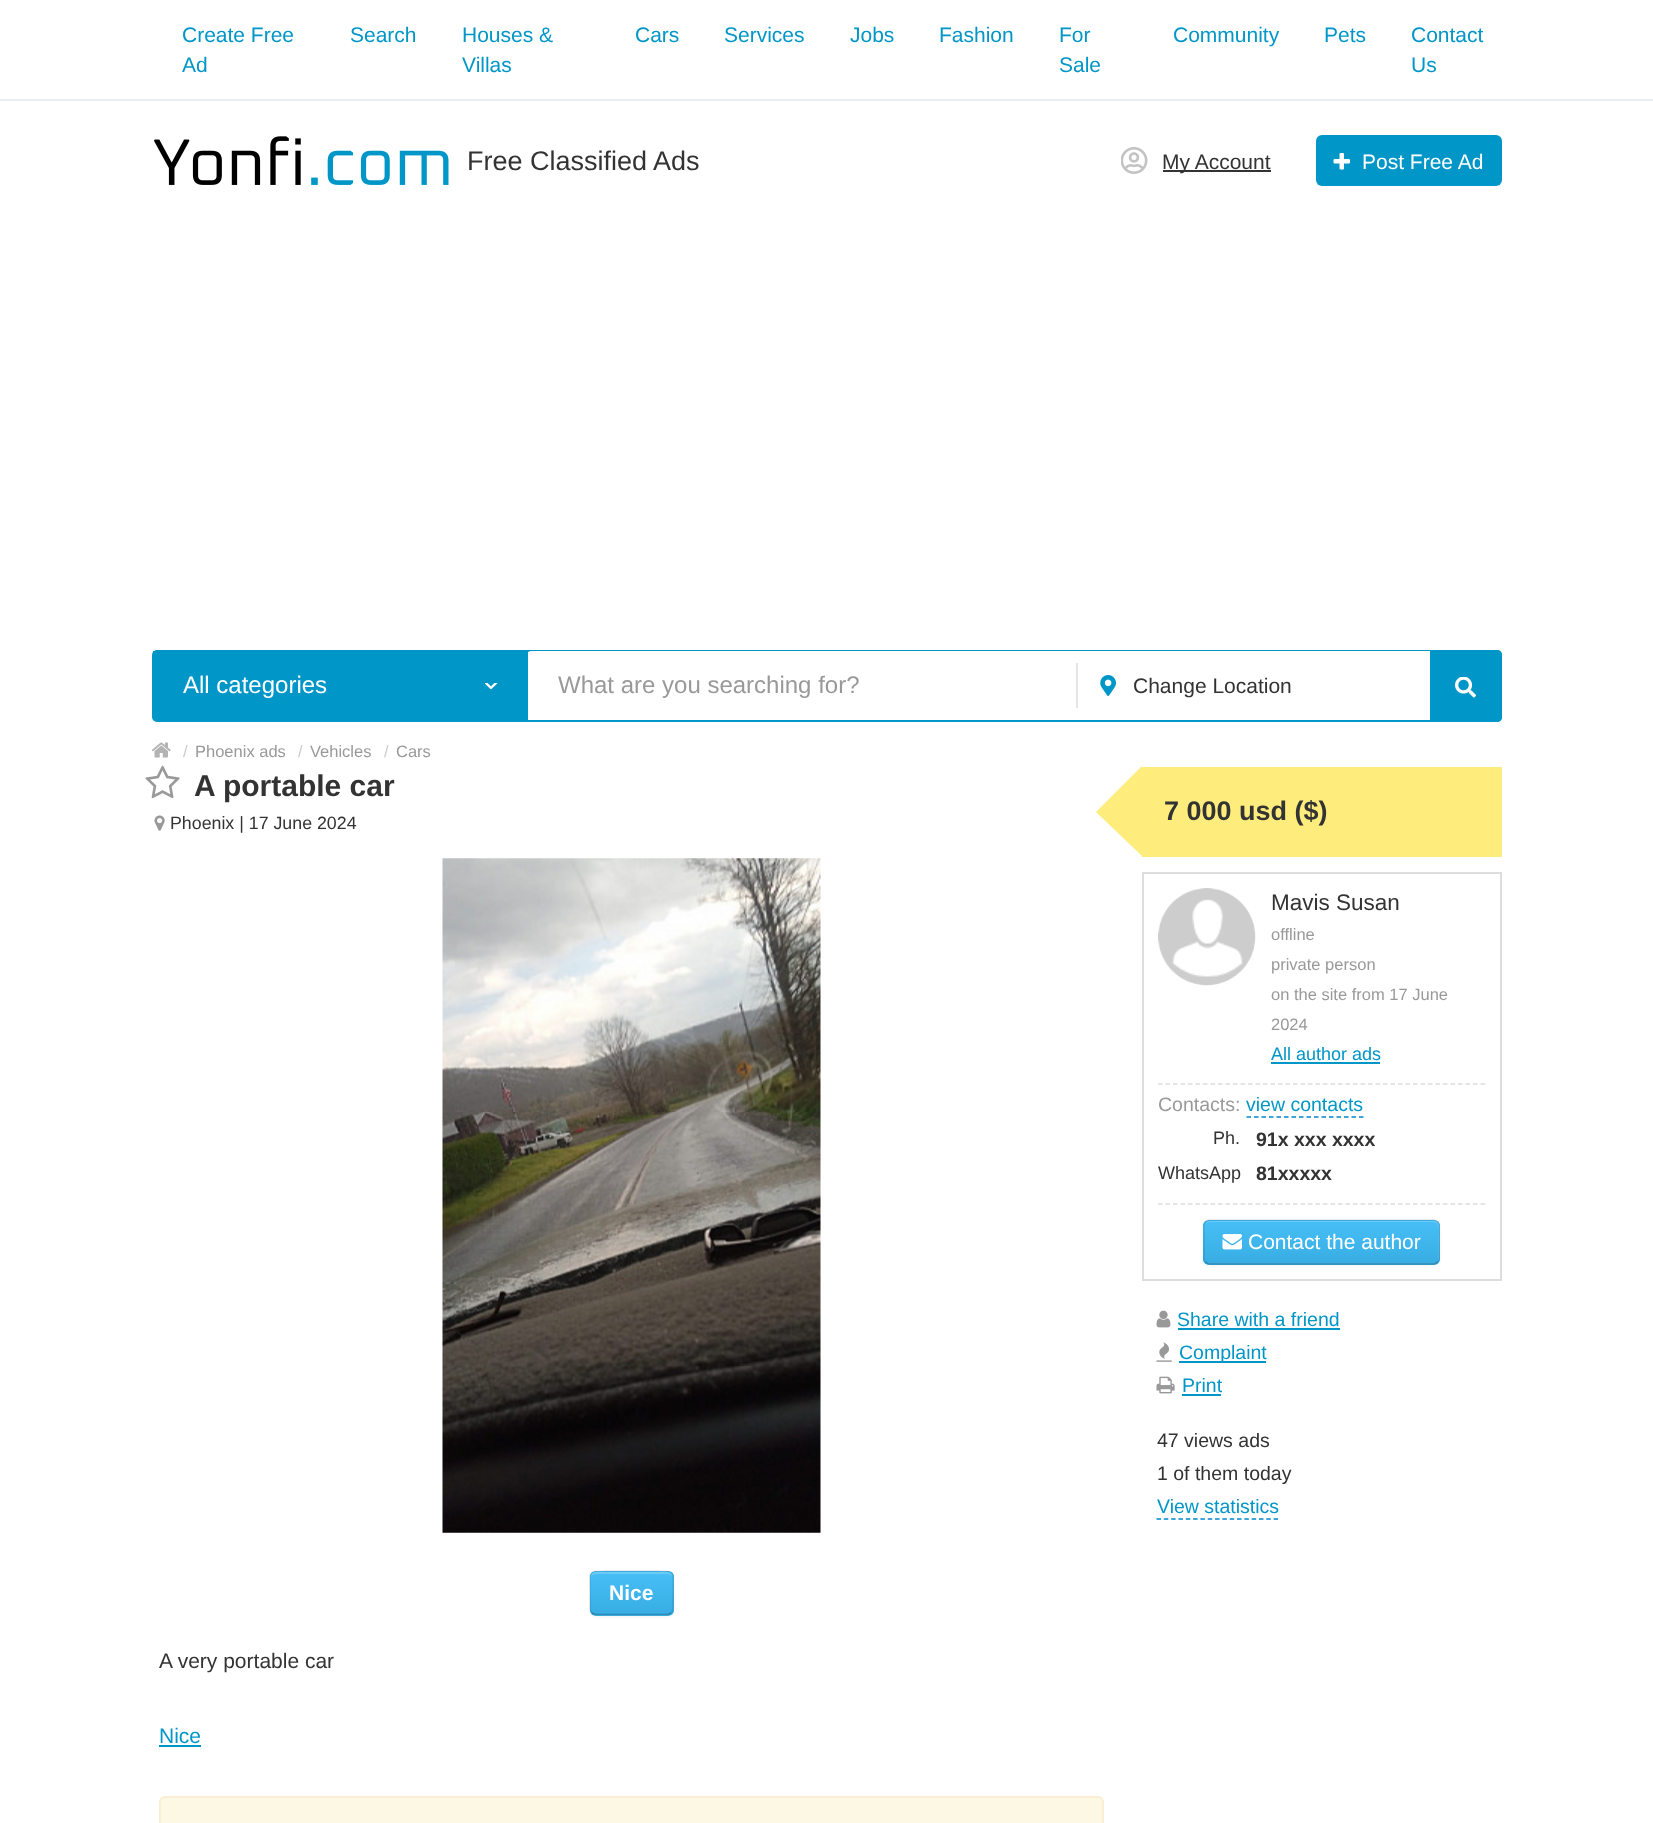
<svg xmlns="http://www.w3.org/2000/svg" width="1653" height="1823">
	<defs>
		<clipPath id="clip1"><rect x="590" y="1571" width="84" height="45" rx="6" /></clipPath>
		<linearGradient id="g1" gradientUnits="userSpaceOnUse" x1="632" y1="1572" x2="632" y2="1614"><stop offset="0" stop-color="#47BFF6" /><stop offset="1" stop-color="#37ADE3" /></linearGradient>
		<clipPath id="clip2"><rect x="1203" y="1220" width="237" height="45" rx="6" /></clipPath>
		<linearGradient id="g2" gradientUnits="userSpaceOnUse" x1="1322" y1="1221" x2="1322" y2="1263"><stop offset="0" stop-color="#47BFF6" /><stop offset="1" stop-color="#37ADE3" /></linearGradient>
	</defs>
	<rect width="100%" height="100%" fill="#FFFFFF" />
	<rect x="0" y="99" width="1653" height="2" fill="#E8EDEF" />
	<g font-family="Liberation Sans" font-size="21" fill="#0096C7">
		<text x="182" y="42">Create Free</text>
		<text x="182" y="72">Ad</text>
		<text x="350" y="42">Search</text>
		<text x="462" y="42">Houses &amp;</text>
		<text x="462" y="72">Villas</text>
		<text x="635" y="42">Cars</text>
		<text x="724" y="42">Services</text>
		<text x="850" y="42">Jobs</text>
		<text x="939" y="42">Fashion</text>
		<text x="1059" y="42">For</text>
		<text x="1059" y="72">Sale</text>
		<text x="1173" y="42">Community</text>
		<text x="1324" y="42">Pets</text>
		<text x="1411" y="42">Contact</text>
		<text x="1411" y="72">Us</text>
	</g>
	<image x="154" y="136" width="295" height="49" href="assets/img1.png" />
	<text x="467" y="170" font-family="Liberation Sans" font-size="27" fill="#333333">Free Classified Ads</text>
	<image x="1121" y="147" width="27" height="27" href="assets/img2.png" />
	<rect x="1163" y="170" width="108" height="2" fill="#333333" />
	<text x="1162" y="169" font-family="Liberation Sans" font-size="21" fill="#333333">My Account</text>
	<rect x="1316" y="135" width="186" height="51" rx="6" fill="#0096C7" />
	<image x="1333" y="153" width="17" height="17" href="assets/img3.png" />
	<text x="1362" y="169" font-family="Liberation Sans" font-size="21" fill="#FFFFFF">Post Free Ad</text>
	<rect x="153" y="651" width="1348" height="70" rx="4" fill="none" stroke="#0096C7" stroke-width="2" />
	<rect x="153" y="651" width="375" height="69" fill="#0096C7" />
	<text x="183" y="693" font-family="Liberation Sans" font-size="24" fill="#FFFFFF">All categories</text>
	<image x="485" y="683" width="13" height="6" href="assets/img4.png" />
	<rect x="528" y="651" width="972" height="69" rx="3" fill="#FFFFFF" />
	<text x="558" y="693" font-family="Liberation Sans" font-size="24" fill="#999999">What are you searching for?</text>
	<rect x="1076" y="663" width="2" height="45" fill="#E5E5E5" />
	<image x="1100" y="675" width="16" height="21" href="assets/img5.png" />
	<text x="1133" y="693" font-family="Liberation Sans" font-size="21" fill="#333333">Change Location</text>
	<path d="M1430 650H1497C1500 650 1502 652 1502 655V717C1502 720 1500 722 1497 722H1430Z" fill="#0096C7" />
	<image x="1455" y="677" width="21" height="21" href="assets/img6.png" />
	<image x="151" y="742" width="20" height="16" href="assets/img7.png" />
	<text x="183" y="757" font-family="Liberation Sans" font-size="16.5" fill="#CCCCCC">/</text>
	<text x="195" y="757" font-family="Liberation Sans" font-size="16.5" fill="#999999">Phoenix ads</text>
	<text x="298" y="757" font-family="Liberation Sans" font-size="16.5" fill="#CCCCCC">/</text>
	<text x="310" y="757" font-family="Liberation Sans" font-size="16.5" fill="#999999">Vehicles</text>
	<text x="384" y="757" font-family="Liberation Sans" font-size="16.5" fill="#CCCCCC">/</text>
	<text x="396" y="757" font-family="Liberation Sans" font-size="16.5" fill="#999999">Cars</text>
	<image x="145" y="765" width="35" height="34" href="assets/img8.png" />
	<text x="194" y="796" font-family="Liberation Sans" font-size="30" font-weight="700" fill="#333333">A portable car</text>
	<image x="154" y="815" width="11" height="16" href="assets/img9.png" />
	<text x="170" y="829" font-family="Liberation Sans" font-size="17.8" fill="#333333">Phoenix | 17 June 2024</text>
	<image x="442" y="858" width="379" height="675" href="assets/img10.png" />
	<rect x="590" y="1572" width="84" height="45" rx="6" fill="#000000" fill-opacity="0.05" filter="blur(1.5px)" />
	<rect x="590" y="1571" width="84" height="45" rx="6" fill="#41B8EE" />
	<g clip-path="url(#clip1)">
		<rect x="590" y="1572" width="84" height="42" fill="url(#g1)" />
	</g>
	<path d="M596 1574H668C670 1574 672 1576 672 1578C672 1569 661 1572 655 1572H608C602 1572 591 1569 591 1578C591 1576 593 1574 596 1574Z" fill="#6BCBF7" />
	<path d="M671 1613L668 1614.5H595L592 1613" fill="none" stroke="#000000" stroke-opacity="0.25" stroke-width="1.5" />
	<path d="M592 1613C589.5 1611 590 1607 590 1604V1593C590 1570.5 586 1571 607.5 1571H655.5C677 1571 673 1570.5 673 1593V1604C673 1607 673.5 1611 671 1613" fill="none" stroke="#000000" stroke-opacity="0.1" stroke-width="1.5" />
	<text x="609" y="1600" font-family="Liberation Sans" font-size="21" font-weight="700" fill="#FFFFFF">Nice</text>
	<text x="159" y="1668" font-family="Liberation Sans" font-size="21" fill="#333333">A very portable car</text>
	<text x="159" y="1743" font-family="Liberation Sans" font-size="21" fill="#0096C7">Nice</text>
	<rect x="159" y="1745" width="42" height="2" fill="#0096C7" />
	<rect x="160" y="1797" width="943" height="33" rx="5" fill="#FCF8E3" stroke="#FBEED5" stroke-width="2" />
	<rect x="1142" y="767" width="360" height="90" fill="#FEED7D" />
	<path d="M1142 812H1096L1142 766Z" fill="#FEED7D" />
	<text x="1164" y="820" font-family="Liberation Sans" font-size="27" font-weight="700" fill="#333333">7 000 usd ($)</text>
	<path d="M1096 812H1142V856Z" fill="#FEED7D" />
	<rect x="1143" y="873" width="358" height="407" fill="none" stroke="#DDDDDD" stroke-width="2" />
	<image x="1158" y="888" width="98" height="98" href="assets/img11.png" />
	<text x="1271" y="910" font-family="Liberation Sans" font-size="22.5" fill="#333333">Mavis Susan</text>
	<g font-family="Liberation Sans" font-size="16.5" fill="#999999">
		<text x="1271" y="940">offline</text>
		<text x="1271" y="970">private person</text>
		<text x="1271" y="1000">on the site from 17 June</text>
		<text x="1271" y="1030">2024</text>
	</g>
	<text x="1271" y="1060" font-family="Liberation Sans" font-size="18" fill="#0096C7">All author ads</text>
	<rect x="1271" y="1062" width="109" height="2" fill="#0096C7" />
	<path d="M1158 1084H1485" fill="none" stroke="#DDDDDD" stroke-width="1.5" stroke-dasharray="4.5 3" />
	<text x="1158" y="1111" font-family="Liberation Sans" font-size="19.5" fill="#999999">Contacts:</text>
	<text x="1246" y="1111" font-family="Liberation Sans" font-size="19.5" fill="#0096C7">view contacts</text>
	<path d="M1246.5 1117H1363.5" fill="none" stroke="#0088CC" stroke-width="1.5" stroke-dasharray="4.5 3" />
	<text x="1213" y="1144" font-family="Liberation Sans" font-size="18" fill="#333333">Ph.</text>
	<text x="1256" y="1146" font-family="Liberation Sans" font-size="19.5" font-weight="700" fill="#333333">91x xxx xxxx</text>
	<text x="1158" y="1179" font-family="Liberation Sans" font-size="18" fill="#333333">WhatsApp</text>
	<text x="1256" y="1180" font-family="Liberation Sans" font-size="19.5" font-weight="700" fill="#333333">81xxxxx</text>
	<path d="M1158 1204H1485" fill="none" stroke="#DDDDDD" stroke-width="1.5" stroke-dasharray="4.5 3" />
	<rect x="1203" y="1221" width="237" height="45" rx="6" fill="#000000" fill-opacity="0.05" filter="blur(1.5px)" />
	<rect x="1203" y="1220" width="237" height="45" rx="6" fill="#41B8EE" />
	<g clip-path="url(#clip2)">
		<rect x="1203" y="1221" width="237" height="42" fill="url(#g2)" />
	</g>
	<path d="M1209 1222H1434C1440 1222 1438 1236 1438 1238V1261C1439 1260 1439 1259 1439 1258V1226C1439 1223 1437 1221 1434 1221H1210C1208 1221 1206 1222 1205 1224C1206 1223 1208 1222 1209 1222Z" fill="#FFFFFF" fill-opacity="0.2" />
	<path d="M1437.5 1262C1436.5 1263 1435.5 1264 1434 1264H1209C1207.5 1264 1206.5 1263 1205.5 1262" fill="none" stroke="#000000" stroke-opacity="0.25" stroke-width="1.5" />
	<path d="M1205.5 1262C1204.5 1261 1204 1260 1204 1258.5V1225.5C1204 1224 1204.5 1223 1205.5 1222C1206.5 1221 1207.5 1220 1209 1220H1434C1435.5 1220 1436.5 1221 1437.5 1222C1438.5 1223 1439 1224 1439 1225.5V1258.5C1439 1260 1438.5 1261 1437.5 1262" fill="none" stroke="#000000" stroke-opacity="0.1" stroke-width="1.5" />
	<image x="1222" y="1234" width="20" height="16" href="assets/img12.png" />
	<text x="1248" y="1249" font-family="Liberation Sans" font-size="21" fill="#FFFFFF">Contact the author</text>
	<image x="1156" y="1310" width="15" height="18" href="assets/img13.png" />
	<text x="1177" y="1326" font-family="Liberation Sans" font-size="19.5" fill="#0096C7">Share with a friend</text>
	<rect x="1178" y="1328" width="162" height="2" fill="#0096C7" />
	<image x="1156" y="1342" width="16" height="20" href="assets/img14.png" />
	<rect x="1179" y="1361" width="87" height="2" fill="#0096C7" />
	<text x="1179" y="1359" font-family="Liberation Sans" font-size="19.5" fill="#0096C7">Complaint</text>
	<image x="1156" y="1376" width="19" height="18" href="assets/img15.png" />
	<text x="1182" y="1392" font-family="Liberation Sans" font-size="19.5" fill="#0096C7">Print</text>
	<rect x="1182" y="1394" width="39" height="2" fill="#0096C7" />
	<g font-family="Liberation Sans" font-size="19.5" fill="#333333">
		<text x="1157" y="1447">47 views ads</text>
		<text x="1157" y="1480">1 of them today</text>
	</g>
	<text x="1157" y="1513" font-family="Liberation Sans" font-size="19.5" fill="#0096C7">View statistics</text>
	<path d="M1156.5 1519H1278" fill="none" stroke="#0088CC" stroke-width="1.5" stroke-dasharray="4.5 2.82" />
</svg>
